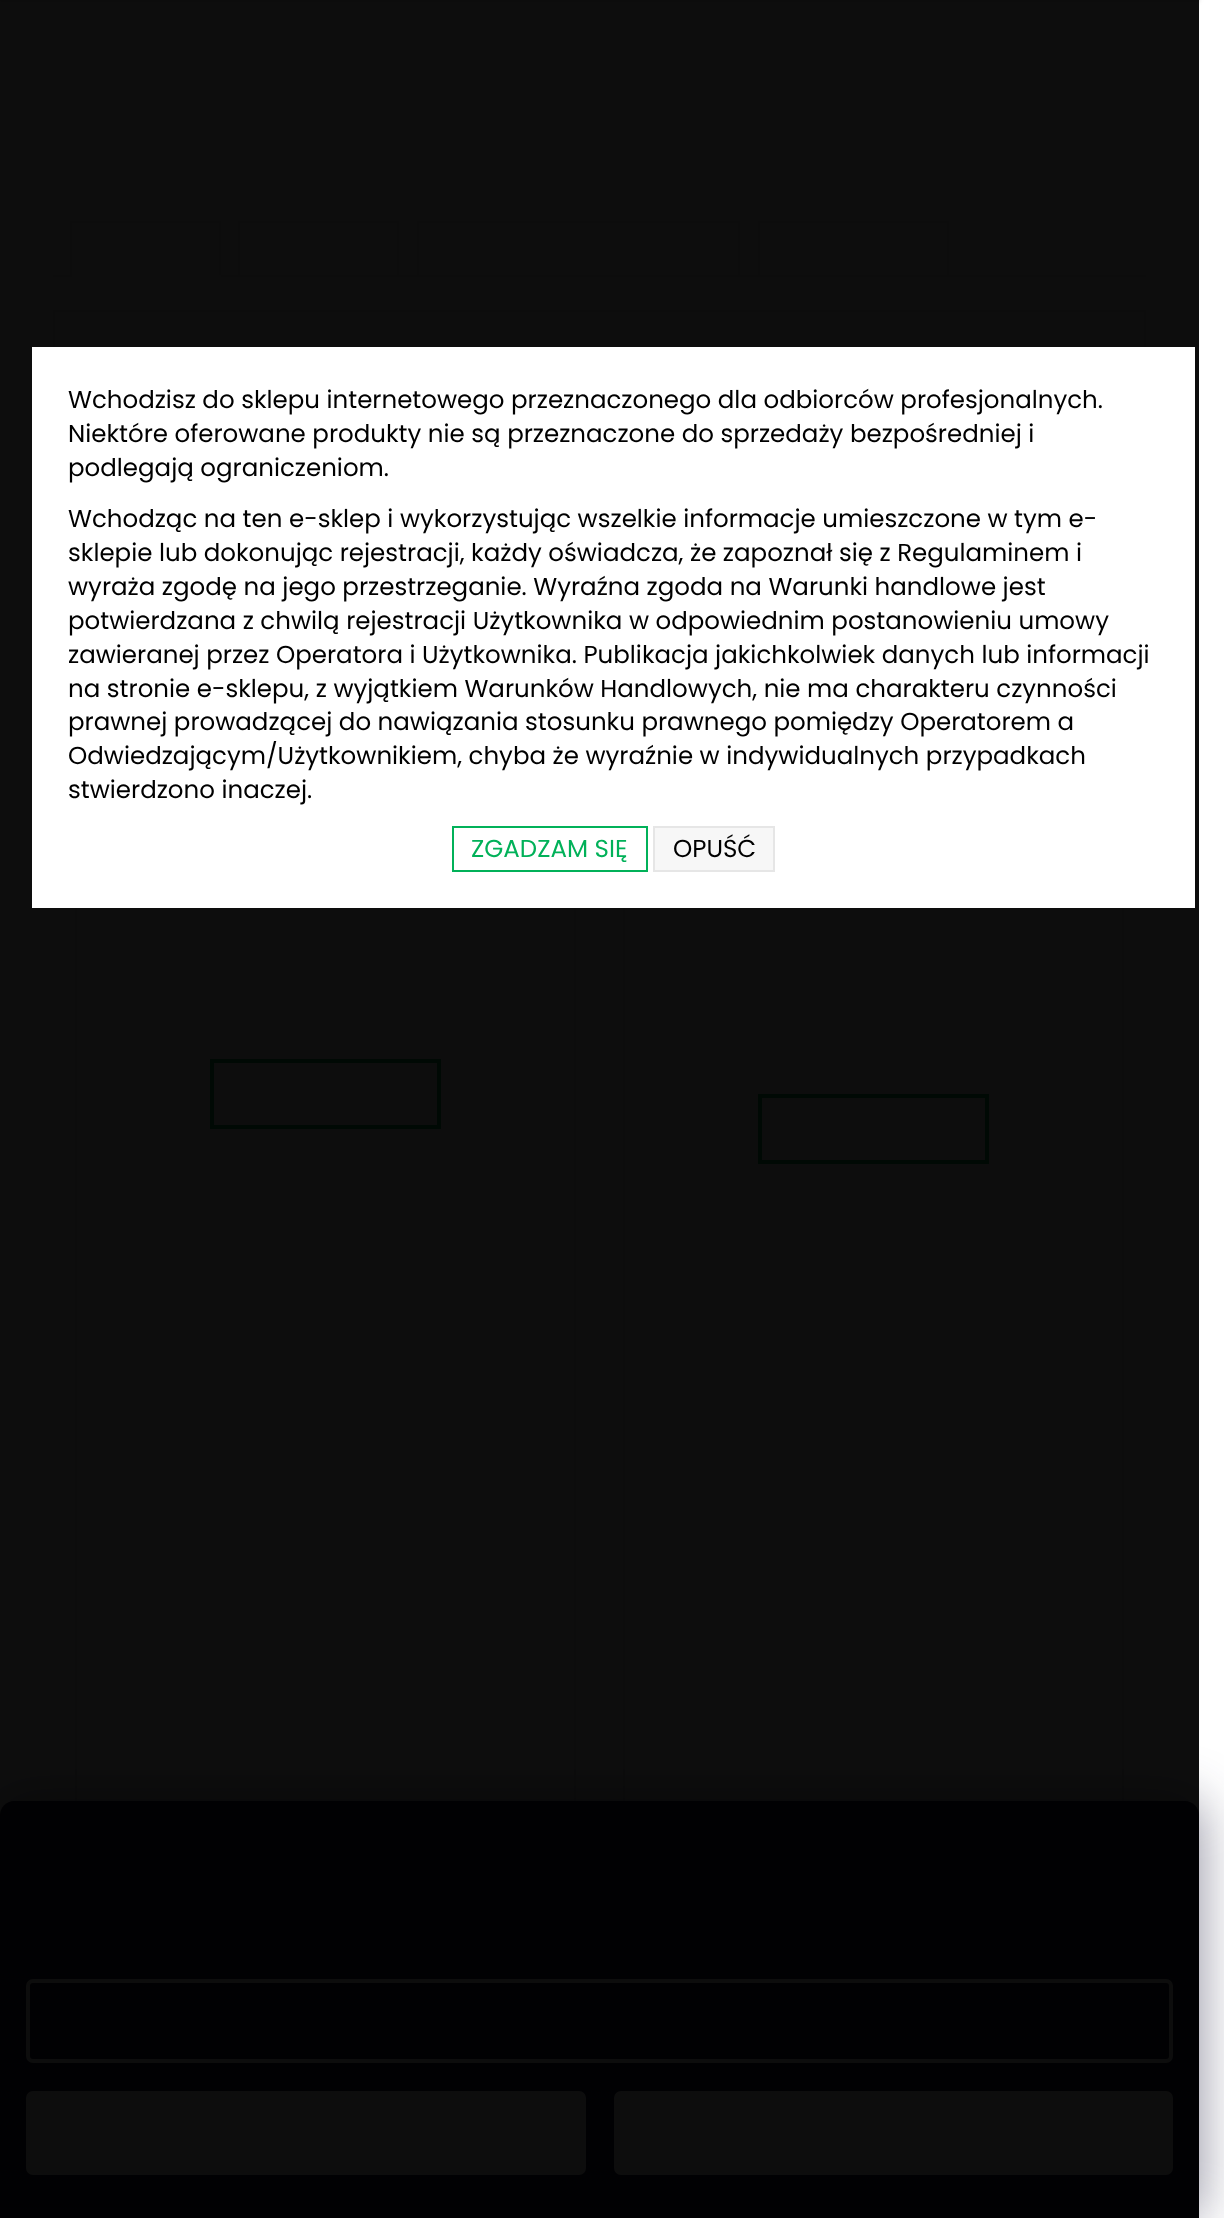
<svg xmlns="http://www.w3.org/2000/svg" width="1224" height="2218">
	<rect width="100%" height="100%" fill="#FFFFFF" />
	<rect x="0" y="-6" width="1199" height="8" fill="#000000" fill-opacity="0.16" filter="blur(2px)" />
	<rect x="53" y="275" width="1093" height="2" fill="#E7E7E7" />
	<rect x="70" y="221" width="151" height="2" fill="#E7E7E7" />
	<rect x="219" y="221" width="2" height="56" fill="#E7E7E7" />
	<rect x="70" y="275" width="151" height="2" fill="#FFFFFF" />
	<rect x="70" y="221" width="2" height="56" fill="#E7E7E7" />
	<rect x="239" y="222" width="159" height="54" fill="#F5F5F5" stroke="#E7E7E7" stroke-width="2" />
	<rect x="418" y="222" width="321" height="54" fill="#F5F5F5" stroke="#E7E7E7" stroke-width="2" />
	<rect x="759" y="222" width="189" height="54" fill="#F5F5F5" stroke="#E7E7E7" stroke-width="2" />
	<rect x="55" y="312" width="1089" height="35" fill="#F7F7F7" />
	<rect x="54" y="311" width="1091" height="99" fill="none" stroke="#E6E6E6" stroke-width="2" />
	<rect x="76" y="468" width="499" height="1395" fill="none" stroke="#E6E6E6" stroke-width="2" />
	<rect x="212" y="1061" width="227" height="66" fill="none" stroke="#01B159" stroke-width="4" />
	<rect x="624" y="468" width="499" height="1395" fill="none" stroke="#E6E6E6" stroke-width="2" />
	<rect x="760" y="1096" width="227" height="66" fill="none" stroke="#01B159" stroke-width="4" />
	<rect x="0" y="1801" width="1199" height="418" rx="14" fill="#1B1939" fill-opacity="0.5" filter="blur(26px)" />
	<path d="M14 1801H1185C1192.5 1801 1199 1807.5 1199 1815V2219H0V1815C0 1807.5 6.5 1801 14 1801Z" fill="#1A1937" />
	<rect x="28" y="1981" width="1143" height="80" rx="5" fill="none" stroke="#F8FAFB" stroke-width="4" />
	<rect x="26" y="2091" width="560" height="84" rx="7" fill="#F8FAFB" />
	<rect x="614" y="2091" width="559" height="84" rx="7" fill="#F8FAFB" />
	<rect x="0" y="0" width="1199" height="2218" fill="#000000" fill-opacity="0.95" />
	<rect x="32" y="347" width="1163" height="561" fill="#FFFFFF" />
	<g font-family="Poppins" font-size="24.5" fill="#000000">
		<text x="68" y="408">Wchodzisz do sklepu internetowego przeznaczonego dla odbiorców profesjonalnych.</text>
		<text x="68" y="442">Niektóre oferowane produkty nie są przeznaczone do sprzedaży bezpośredniej i</text>
		<text x="68" y="476">podlegają ograniczeniom.</text>
		<text x="68" y="527">Wchodząc na ten e-sklep i wykorzystując wszelkie informacje umieszczone w tym e-</text>
		<text x="68" y="561">sklepie lub dokonując rejestracji, każdy oświadcza, że zapoznał się z Regulaminem i</text>
		<text x="68" y="595">wyraża zgodę na jego przestrzeganie. Wyraźna zgoda na Warunki handlowe jest</text>
		<text x="68" y="629">potwierdzana z chwilą rejestracji Użytkownika w odpowiednim postanowieniu umowy</text>
		<text x="68" y="663">zawieranej przez Operatora i Użytkownika. Publikacja jakichkolwiek danych lub informacji</text>
		<text x="68" y="697">na stronie e-sklepu, z wyjątkiem Warunków Handlowych, nie ma charakteru czynności</text>
		<text x="68" y="730">prawnej prowadzącej do nawiązania stosunku prawnego pomiędzy Operatorem a</text>
		<text x="68" y="764">Odwiedzającym/Użytkownikiem, chyba że wyraźnie w indywidualnych przypadkach</text>
		<text x="68" y="798">stwierdzono inaczej.</text>
	</g>
	<rect x="453" y="827" width="194" height="44" fill="none" stroke="#01B159" stroke-width="2" />
	<text x="471" y="857" font-family="Poppins" font-size="24.5" fill="#01B159">ZGADZAM SIĘ</text>
	<rect x="654" y="827" width="120" height="44" fill="#F7F7F7" stroke="#E6E6E6" stroke-width="2" />
	<text x="673" y="857" font-family="Poppins" font-size="24.5" fill="#000000">OPUŚĆ</text>
</svg>
